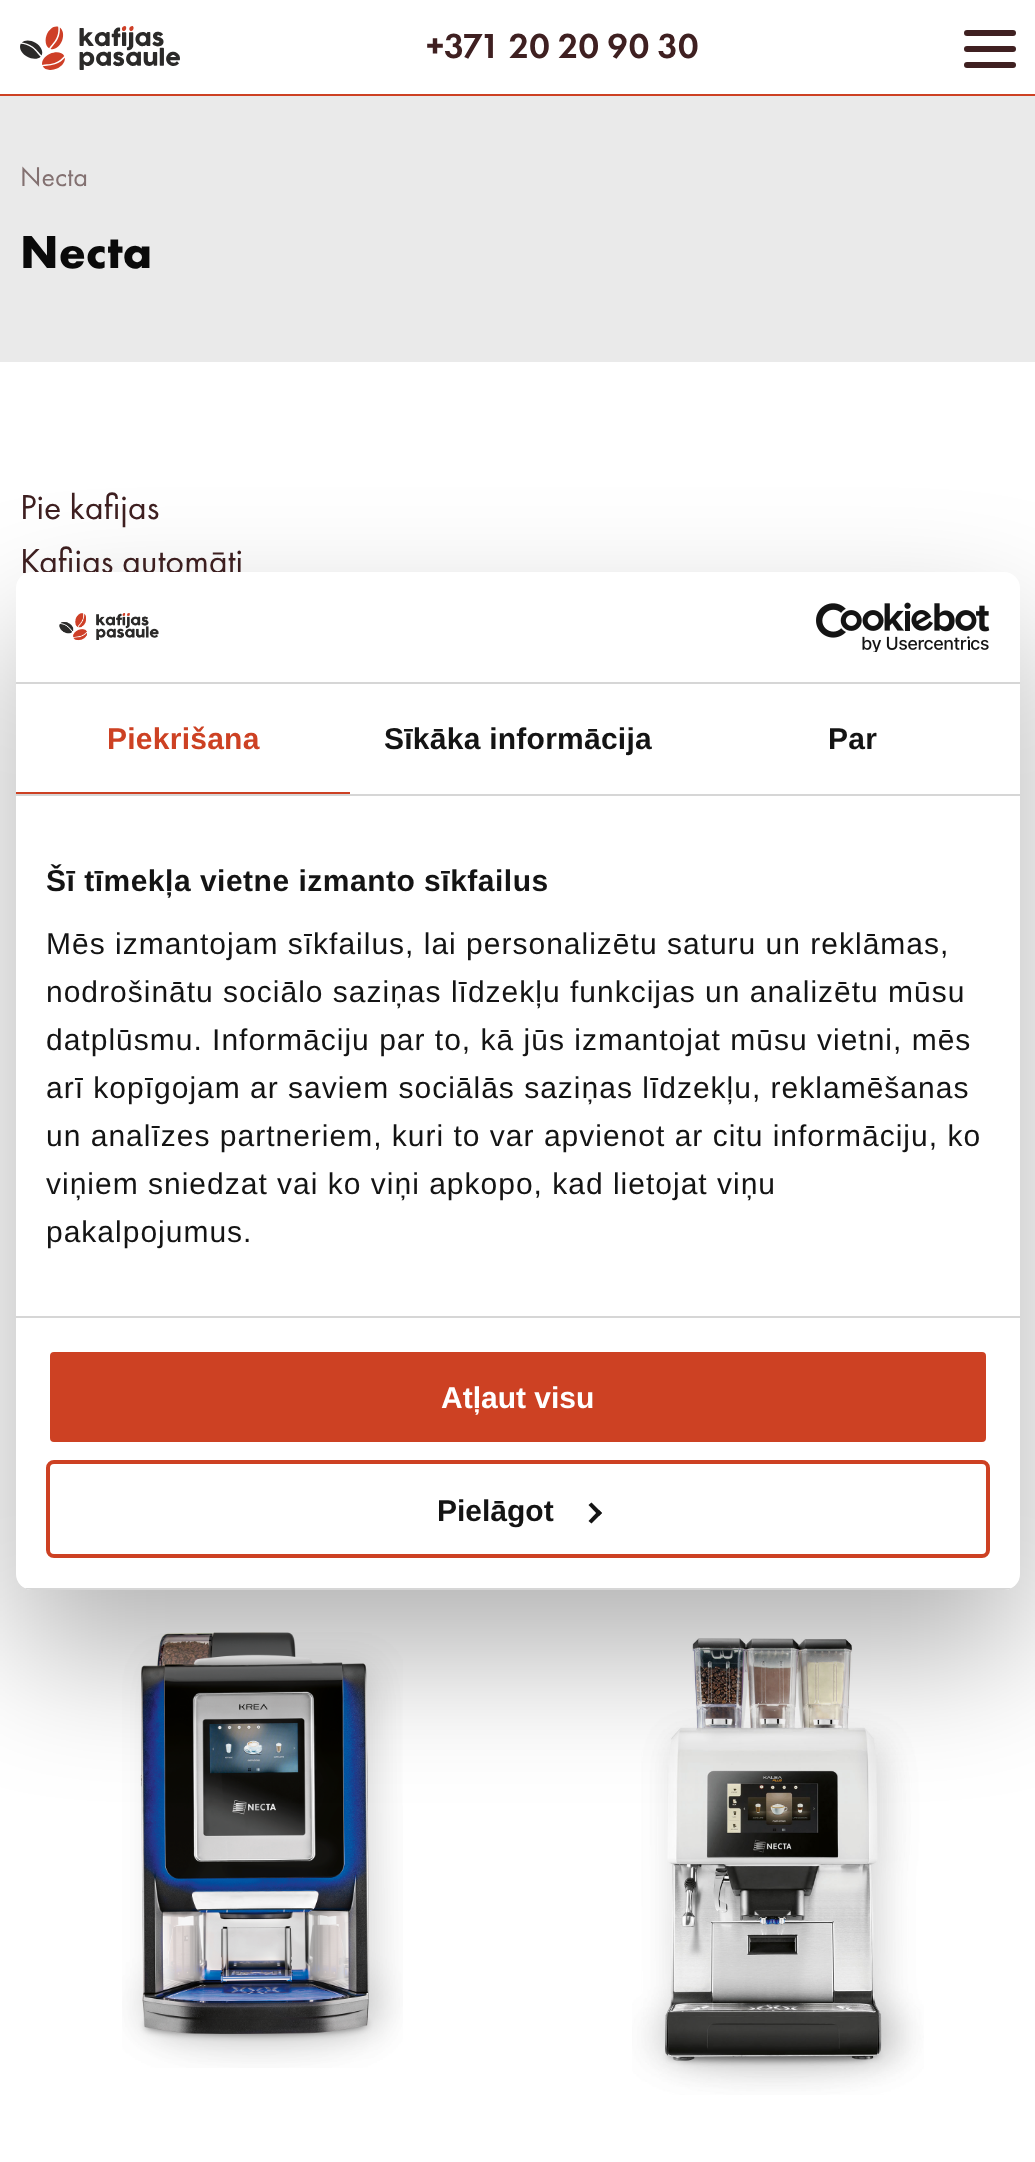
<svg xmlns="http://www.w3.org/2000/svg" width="1035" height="2162">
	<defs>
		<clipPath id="clip1"><rect x="16" y="572" width="1004" height="1018" rx="16" /></clipPath>
	</defs>
	<rect width="100%" height="100%" fill="#FFFFFF" />
	<rect x="0" y="94" width="1035" height="2" fill="#CD4123" />
	<image x="20" y="26" width="160" height="44" href="assets/img1.png" />
	<text x="426" y="58" font-family="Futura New" font-size="36" font-weight="500" fill="#3F2021">+371 20 20 90 30</text>
	<rect x="964" y="46" width="52" height="6" rx="3" fill="#3F2021" />
	<rect x="964" y="30" width="52" height="6" rx="3" fill="#3F2021" />
	<rect x="964" y="62" width="52" height="6" rx="3" fill="#3F2021" />
	<rect x="0" y="96" width="1035" height="266" fill="#EAEAEA" />
	<text x="20" y="186" font-family="Futura New" font-size="28" fill="#837171">Necta</text>
	<text x="20" y="268" font-family="Futura New" font-size="48" font-weight="700" fill="#0A0A0A">Necta</text>
	<g font-family="Futura New" font-size="36" fill="#3F2021">
		<text x="20" y="519">Pie kafijas</text>
		<text x="20" y="573">Kafijas automāti</text>
	</g>
	<image x="122" y="1632" width="281" height="436" href="assets/img2.png" />
	<image x="632" y="1638" width="292" height="457" href="assets/img3.png" />
	<rect x="16" y="636" width="1004" height="1018" rx="16" fill="#000000" fill-opacity="0.3" filter="blur(68px)" />
	<rect x="16" y="572" width="1004" height="1018" rx="16" fill="#FFFFFF" />
	<rect x="16" y="682" width="1004" height="2" fill="#D6D6D6" />
	<image x="59" y="613" width="100" height="28" href="assets/img4.png" />
	<image x="816" y="602" width="174" height="50" href="assets/img5.png" />
	<rect x="16" y="794" width="1004" height="2" fill="#D6D6D6" />
	<rect x="16" y="792" width="334" height="2" fill="#CD4123" />
	<text x="107" y="749" font-family="Liberation Sans" font-size="30" font-weight="700" letter-spacing="0.25" fill="#CD4123">Piekrišana</text>
	<g font-family="Liberation Sans" font-size="30" font-weight="700" letter-spacing="0.25" fill="#141414">
		<text x="384" y="749">Sīkāka informācija</text>
		<text x="828" y="749">Par</text>
	</g>
	<rect x="16" y="1316" width="1004" height="2" fill="#D6D6D6" />
	<text x="46" y="891" font-family="Liberation Sans" font-size="30" font-weight="700" letter-spacing="0.5" fill="#141414">Šī tīmekļa vietne izmanto sīkfailus</text>
	<g font-family="Liberation Sans" font-size="30" letter-spacing="1" fill="#141414">
		<text x="46" y="954">Mēs izmantojam sīkfailus, lai personalizētu saturu un reklāmas,</text>
		<text x="46" y="1002">nodrošinātu sociālo saziņas līdzekļu funkcijas un analizētu mūsu</text>
		<text x="46" y="1050">datplūsmu. Informāciju par to, kā jūs izmantojat mūsu vietni, mēs</text>
		<text x="46" y="1098">arī kopīgojam ar saviem sociālās saziņas līdzekļu, reklamēšanas</text>
		<text x="46" y="1146">un analīzes partneriem, kuri to var apvienot ar citu informāciju, ko</text>
		<text x="46" y="1194">viņiem sniedzat vai ko viņi apkopo, kad lietojat viņu</text>
		<text x="46" y="1242">pakalpojumus.</text>
	</g>
	<g clip-path="url(#clip1)">
		<rect x="16" y="1588" width="1004" height="2" fill="#D6D6D6" />
	</g>
	<rect x="48" y="1350" width="940" height="94" rx="6" fill="#CD4123" stroke="#FFFFFF" stroke-width="4" />
	<text x="441" y="1408" font-family="Liberation Sans" font-size="30" font-weight="700" fill="#FFFFFF">Atļaut visu</text>
	<rect x="48" y="1462" width="940" height="94" rx="6" fill="none" stroke="#CD4123" stroke-width="4" />
	<text x="437" y="1521" font-family="Liberation Sans" font-size="30" font-weight="700" fill="#141414">Pielāgot</text>
	<path d="M591.5 1502.5L602 1513L599 1516L588.5 1505Z" fill="#141414" />
	<path d="M599 1510L602 1513L591.5 1523.5L588.5 1521Z" fill="#141414" />
</svg>
